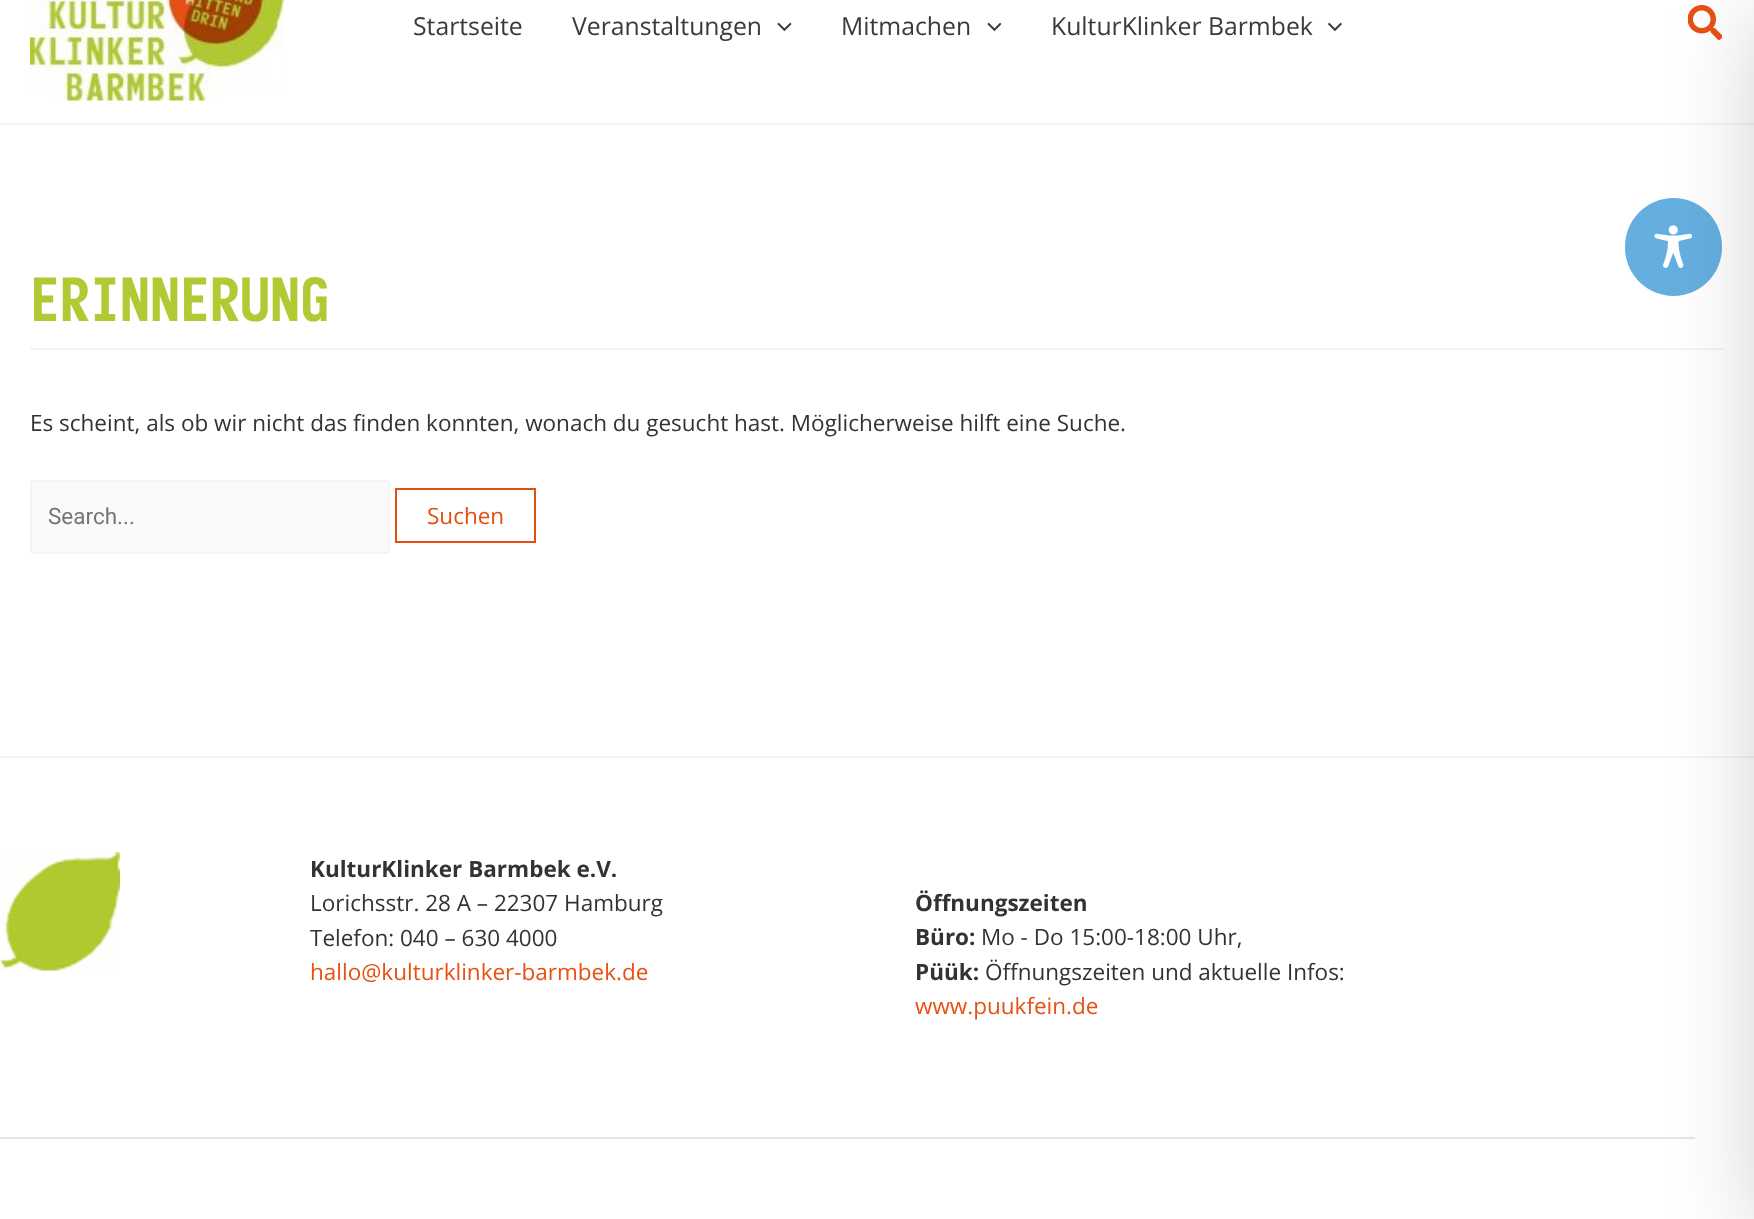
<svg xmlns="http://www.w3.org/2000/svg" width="1754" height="1219">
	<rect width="100%" height="100%" fill="#FFFFFF" />
	<rect x="0" y="123" width="1754" height="2" fill="#F2F5F7" />
	<image x="30" y="0" width="255" height="101" href="assets/img1.png" />
	<g font-family="Open Sans" font-size="24.75" fill="#3A3A3A">
		<text x="413" y="35">Startseite</text>
		<text x="572" y="35">Veranstaltungen</text>
	</g>
	<image x="777" y="22" width="15" height="10" href="assets/img2.png" />
	<text x="841" y="35" font-family="Open Sans" font-size="24.75" fill="#3A3A3A">Mitmachen</text>
	<image x="987" y="22" width="14" height="10" href="assets/img3.png" />
	<text x="1051" y="35" font-family="Open Sans" font-size="24.75" fill="#3A3A3A">KulturKlinker Barmbek</text>
	<image x="1328" y="22" width="14" height="10" href="assets/img4.png" />
	<image x="1688" y="5" width="34" height="35" href="assets/img5.png" />
	<rect x="30" y="348" width="1695" height="2" fill="#F2F5F7" />
	<text x="30" y="321" font-family="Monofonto" font-size="60" fill="#B1CA34">ERINNERUNG</text>
	<text x="30" y="431" font-family="Open Sans" font-size="22.5" fill="#333333">Es scheint, als ob wir nicht das finden konnten, wonach du gesucht hast. Möglicherweise hilft eine Suche.</text>
	<rect x="31" y="481" width="358" height="72" rx="2" fill="#FAFAFA" stroke="#F2F5F7" stroke-width="2" />
	<text x="48" y="524" font-family="Roboto" font-size="22.5" fill="#757575">Search...</text>
	<rect x="396" y="489" width="139" height="53" fill="none" stroke="#E44F0D" stroke-width="2" />
	<text x="427" y="524" font-family="Open Sans" font-size="22.5" fill="#E44F0D">Suchen</text>
	<rect x="0" y="756" width="1754" height="2" fill="#F2F5F7" />
	<image x="0" y="852" width="120" height="119" href="assets/img6.png" />
	<text x="310" y="877" font-family="Open Sans" font-size="22.5" font-weight="700" fill="#333333">KulturKlinker Barmbek e.V.</text>
	<g font-family="Open Sans" font-size="22.5" fill="#333333">
		<text x="310" y="911">Lorichsstr. 28 A – 22307 Hamburg</text>
		<text x="310" y="946">Telefon: 040 – 630 4000</text>
	</g>
	<text x="310" y="980" font-family="Open Sans" font-size="22.5" fill="#E75113">hallo@kulturklinker-barmbek.de</text>
	<g font-family="Open Sans" font-size="22.5" font-weight="700" fill="#333333">
		<text x="915" y="911">Öffnungszeiten</text>
		<text x="915" y="945">Büro:</text>
	</g>
	<text x="981" y="945" font-family="Open Sans" font-size="22.5" fill="#333333">Mo - Do 15:00-18:00 Uhr,</text>
	<text x="915" y="980" font-family="Open Sans" font-size="22.5" font-weight="700" fill="#333333">Püük:</text>
	<text x="985" y="980" font-family="Open Sans" font-size="22.5" fill="#333333">Öffnungszeiten und aktuelle Infos:</text>
	<text x="915" y="1014" font-family="Open Sans" font-size="22.5" fill="#E75113">www.puukfein.de</text>
	<rect x="0" y="1137" width="1695" height="2" fill="#E6E6E6" />
	<rect x="1625" y="198" width="97" height="98" rx="48.5" fill="#65AFE0" />
	<image x="1654" y="225" width="39" height="43" href="assets/img7.png" />
	<rect x="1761" y="15" width="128" height="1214" fill="#000000" fill-opacity="0.2" filter="blur(45px)" />
</svg>
